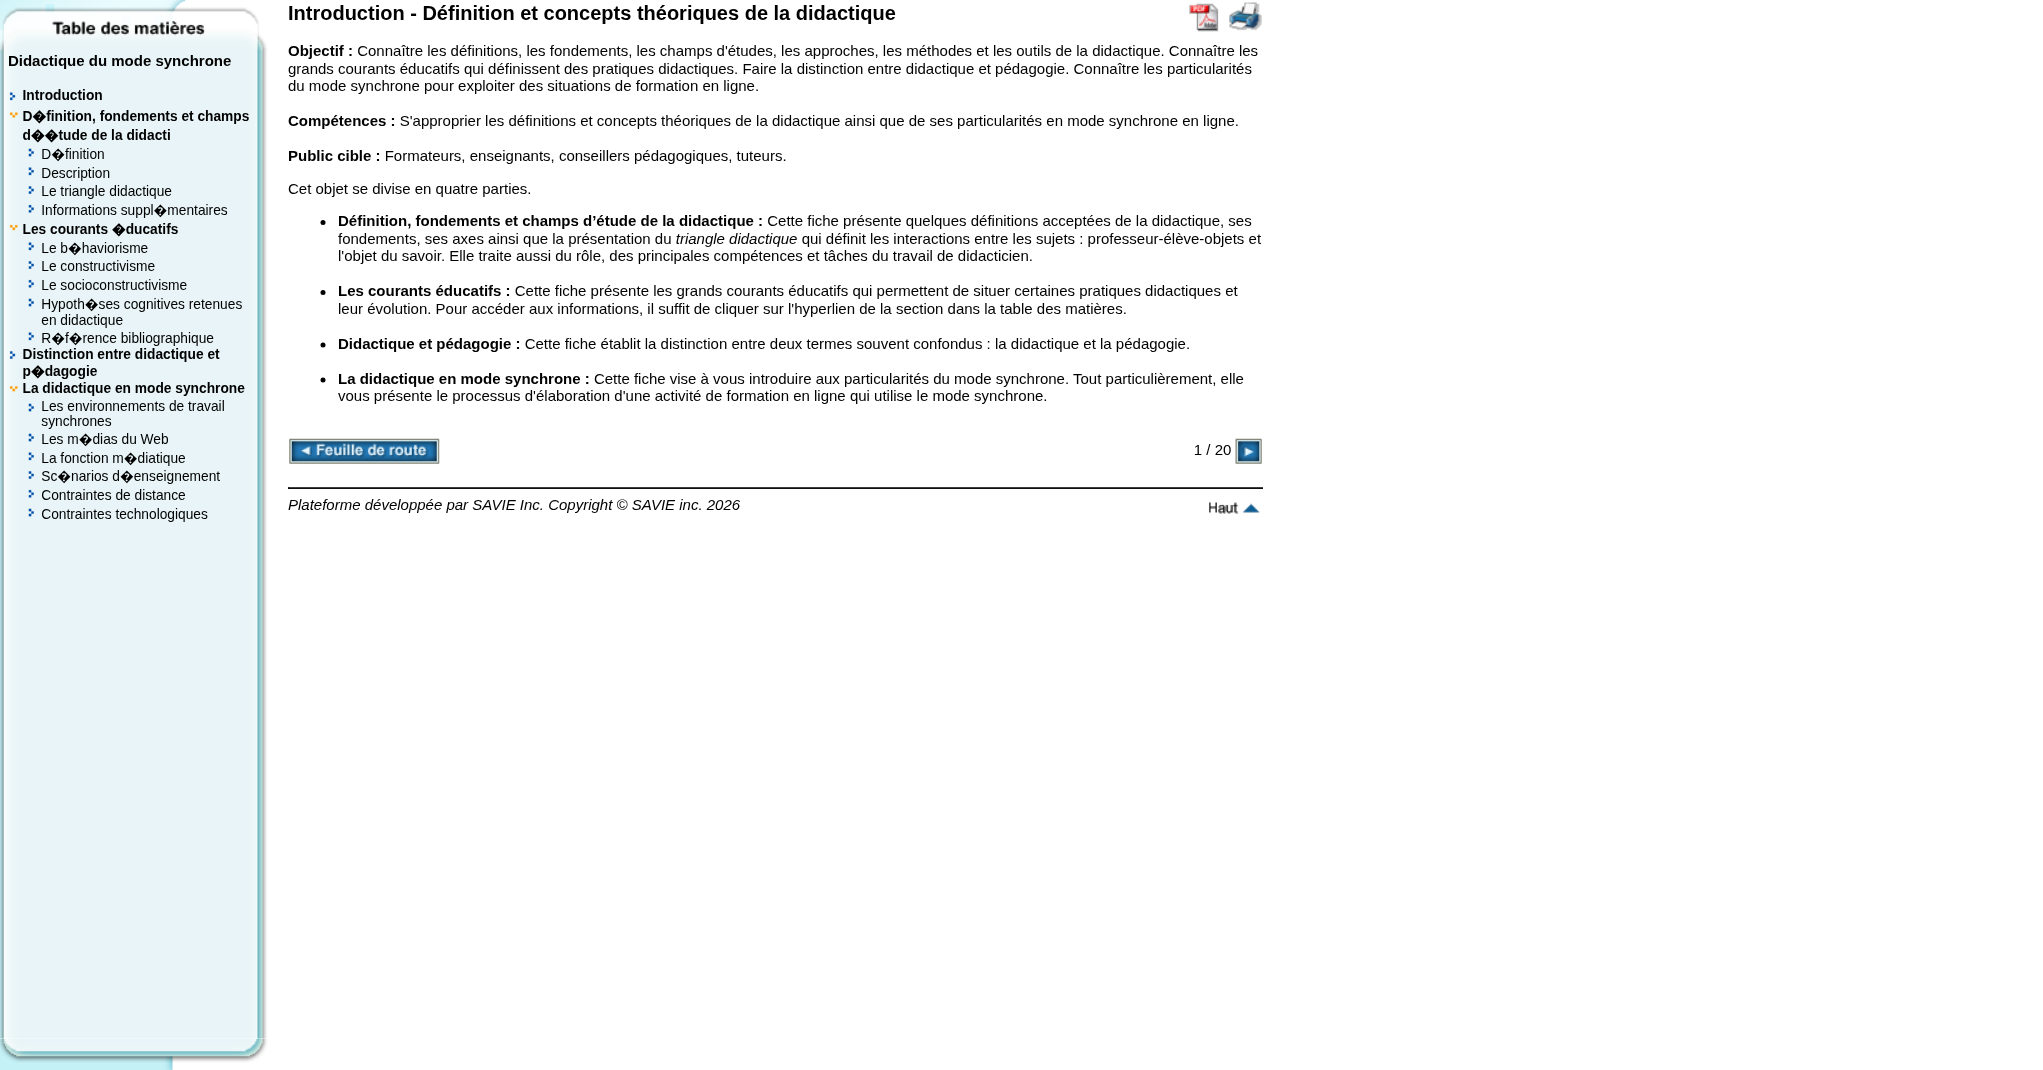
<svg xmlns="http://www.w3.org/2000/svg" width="2043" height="1070">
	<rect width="100%" height="100%" fill="#FFFFFF" />
	<image x="0" y="0" width="268" height="50" href="assets/img1.png" />
	<image x="288" y="0" width="975" height="1070" href="assets/img2.png" />
	<image x="0" y="1038" width="268" height="32" href="assets/img4.png" />
	<image x="0" y="50" width="267" height="989" href="assets/img3.png" />
</svg>
